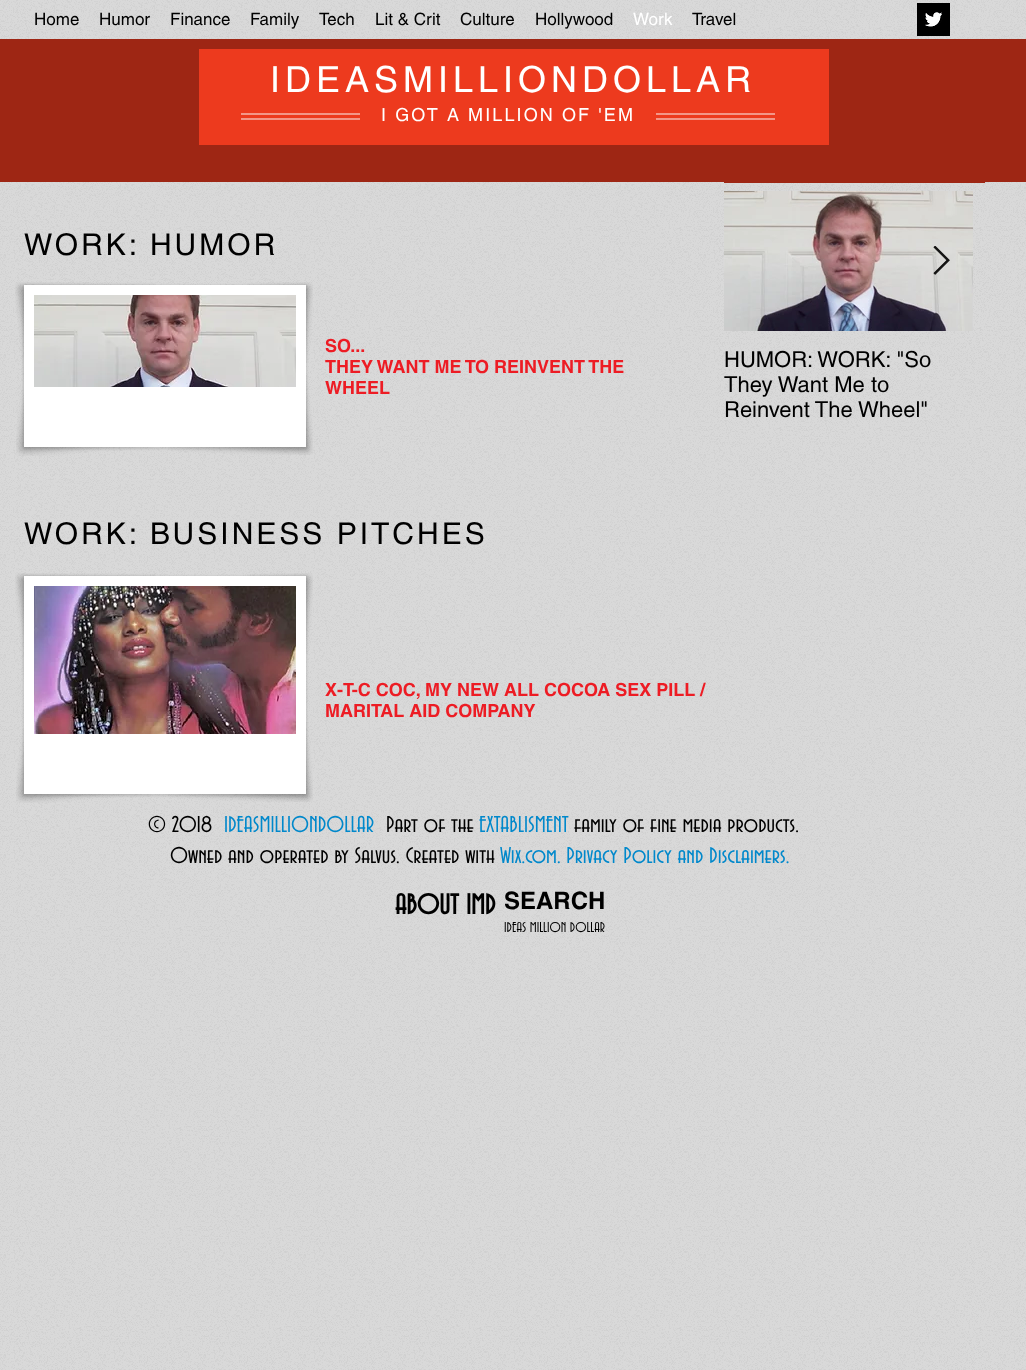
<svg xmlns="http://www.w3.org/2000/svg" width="1026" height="1370">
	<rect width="100%" height="100%" fill="#D9D9D9" />
	<image x="0" y="0" width="1026" height="1370" href="assets/img1.png" />
	<g font-family="helvetica" font-size="17" fill="#000000">
		<text x="34" y="25">Home</text>
		<text x="99" y="25">Humor</text>
		<text x="170" y="25">Finance</text>
		<text x="250" y="25">Family</text>
		<text x="319" y="25">Tech</text>
		<text x="375" y="25">Lit &amp; Crit</text>
		<text x="460" y="25">Culture</text>
		<text x="535" y="25">Hollywood</text>
	</g>
	<text x="633" y="25" font-family="helvetica" font-size="17" fill="#FFFFFF">Work</text>
	<text x="692" y="25" font-family="helvetica" font-size="17" fill="#000000">Travel</text>
	<image x="917" y="3" width="33" height="33" href="assets/img2.png" />
	<rect x="0" y="39" width="1026" height="143" fill="#9E2614" />
	<rect x="199" y="49" width="630" height="96" fill="#ED3A1E" />
	<text x="270" y="92" font-family="helvetica" font-size="36" letter-spacing="5" fill="#FFFFFF">IDEASMILLIONDOLLAR</text>
	<rect x="241" y="113" width="119" height="2" fill="#F39789" />
	<rect x="241" y="118" width="119" height="2" fill="#F39789" />
	<text x="381" y="121" font-family="helvetica" font-size="18" letter-spacing="2.1" fill="#FFFFFF">I GOT A MILLION OF 'EM</text>
	<rect x="656" y="113" width="119" height="2" fill="#F39789" />
	<rect x="656" y="118" width="119" height="2" fill="#F39789" />
	<rect x="724" y="182" width="261" height="1" fill="#9E2614" />
	<text x="24" y="255" font-family="helvetica" font-size="30" letter-spacing="3" fill="#000000">WORK: HUMOR</text>
	<image x="15" y="282" width="141" height="99" href="assets/img4.png" />
	<image x="247" y="282" width="66" height="81" href="assets/img5.png" />
	<image x="16" y="381" width="135" height="75" href="assets/img6.png" />
	<image x="168" y="375" width="145" height="80" href="assets/img7.png" />
	<rect x="23" y="285" width="284" height="164" fill="#000000" fill-opacity="0.1" filter="blur(1px)" />
	<rect x="24" y="285" width="282" height="162" fill="#FFFFFF" />
	<image x="34" y="295" width="262" height="92" href="assets/img3.png" />
	<g font-family="helvetica" font-size="18" font-weight="700" fill="#ED1C24">
		<text x="325" y="352">SO...</text>
		<text x="325" y="373">THEY WANT ME TO REINVENT THE</text>
		<text x="325" y="394">WHEEL</text>
	</g>
	<image x="724" y="191" width="249" height="140" href="assets/img9.png" />
	<image x="933" y="246" width="17" height="29" href="assets/img8.png" />
	<g font-family="helvetica" font-size="22" fill="#000000">
		<text x="724" y="367">HUMOR: WORK: "So</text>
		<text x="724" y="392">They Want Me to</text>
		<text x="724" y="417">Reinvent The Wheel"</text>
	</g>
	<text x="24" y="544" font-family="helvetica" font-size="30" letter-spacing="3" fill="#000000">WORK: BUSINESS PITCHES</text>
	<image x="15" y="573" width="141" height="99" href="assets/img11.png" />
	<image x="247" y="573" width="66" height="81" href="assets/img12.png" />
	<image x="16" y="728" width="135" height="75" href="assets/img13.png" />
	<image x="168" y="722" width="145" height="80" href="assets/img14.png" />
	<rect x="23" y="576" width="284" height="220" fill="#000000" fill-opacity="0.1" filter="blur(1px)" />
	<rect x="24" y="576" width="282" height="218" fill="#FFFFFF" />
	<image x="34" y="586" width="262" height="148" href="assets/img10.png" />
	<g font-family="helvetica" font-size="18" font-weight="700" fill="#ED1C24">
		<text x="325" y="696">X-T-C COC, MY NEW ALL COCOA SEX PILL /</text>
		<text x="325" y="717">MARITAL AID COMPANY</text>
	</g>
	<text x="148" y="832" font-family="'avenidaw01'" font-size="24" fill="#000000">© 2018</text>
	<text x="224" y="832" font-family="'avenidaw01'" font-size="24" fill="#0088CB">IDEASMILLIONDOLLAR</text>
	<text x="386" y="832" font-family="'avenidaw01'" font-size="24" fill="#000000">Part of the</text>
	<text x="479" y="832" font-family="'avenidaw01'" font-size="24" fill="#0088CB">EXTABLISMENT</text>
	<g font-family="'avenidaw01'" font-size="24" fill="#000000">
		<text x="574" y="832">family of fine media products.</text>
		<text x="170" y="863">Owned and operated by Salvus. Created with</text>
	</g>
	<text x="500" y="863" font-family="'avenidaw01'" font-size="24" fill="#0088CB">Wix.com. Privacy Policy and Disclaimers.</text>
	<text x="395" y="914" font-family="'avenidaw01'" font-size="30" font-weight="700" fill="#000000">ABOUT IMD</text>
	<text x="504" y="909" font-family="helvetica" font-size="24" font-weight="700" fill="#000000">SEARCH</text>
	<text x="504" y="932" font-family="'avenidaw01'" font-size="15" fill="#000000">IDEAS MILLION DOLLAR</text>
</svg>
